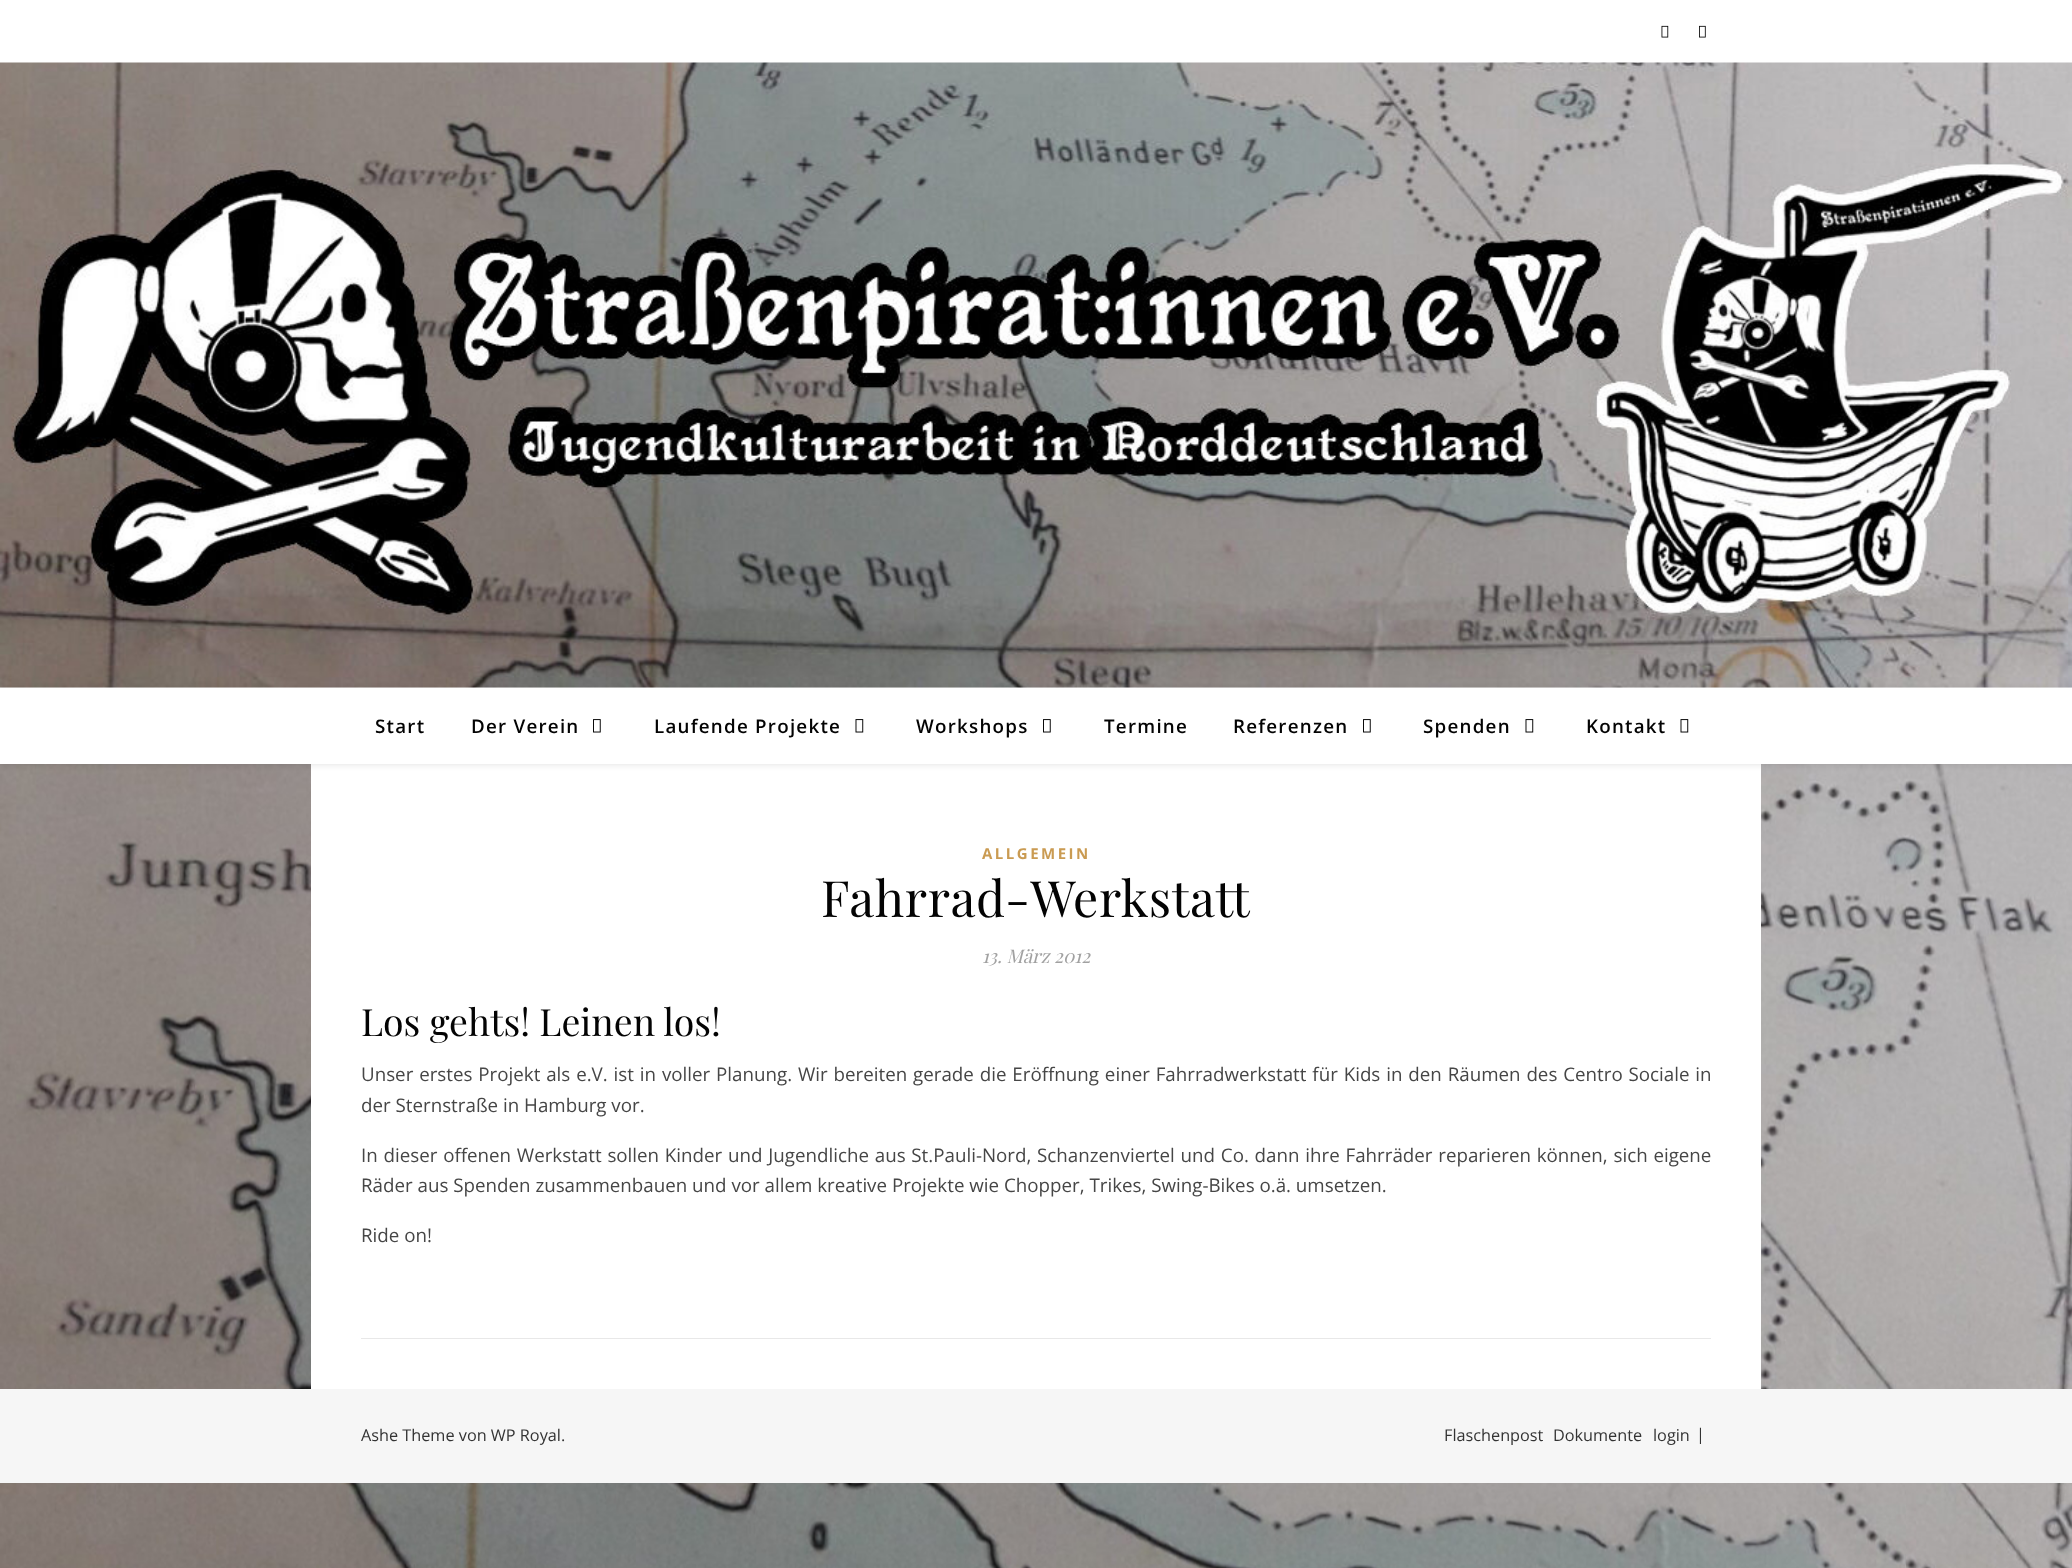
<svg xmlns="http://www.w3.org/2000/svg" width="2072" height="1568">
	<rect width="100%" height="100%" fill="#FFFFFF" />
	<image x="0" y="764" width="2072" height="804" href="assets/img1.png" />
	<image x="1661" y="25" width="8" height="13" href="assets/img2.png" />
	<image x="1699" y="25" width="7" height="13" href="assets/img3.png" />
	<image x="0" y="62" width="2072" height="626" href="assets/img4.png" />
	<rect x="311" y="764" width="1450" height="625" fill="#FFFFFF" />
	<rect x="0" y="689" width="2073" height="76" fill="#000000" fill-opacity="0.1" filter="blur(3px)" />
	<rect x="0" y="688" width="2072" height="76" fill="#FFFFFF" />
	<g font-family="Open Sans" font-size="18.75" font-weight="600" letter-spacing="1.25" fill="#030303">
		<text x="375" y="733">Start</text>
		<text x="471" y="733">Der Verein</text>
	</g>
	<image x="593" y="719" width="8" height="14" href="assets/img5.png" />
	<text x="654" y="733" font-family="Open Sans" font-size="18.75" font-weight="600" letter-spacing="1.25" fill="#030303">Laufende Projekte</text>
	<image x="855" y="719" width="9" height="14" href="assets/img6.png" />
	<text x="916" y="733" font-family="Open Sans" font-size="18.75" font-weight="600" letter-spacing="1.25" fill="#030303">Workshops</text>
	<image x="1043" y="719" width="8" height="14" href="assets/img5.png" />
	<g font-family="Open Sans" font-size="18.75" font-weight="600" letter-spacing="1.25" fill="#030303">
		<text x="1104" y="733">Termine</text>
		<text x="1233" y="733">Referenzen</text>
	</g>
	<image x="1363" y="719" width="8" height="14" href="assets/img5.png" />
	<text x="1423" y="733" font-family="Open Sans" font-size="18.75" font-weight="600" letter-spacing="1.25" fill="#030303">Spenden</text>
	<image x="1525" y="719" width="9" height="14" href="assets/img6.png" />
	<text x="1586" y="733" font-family="Open Sans" font-size="18.75" font-weight="600" letter-spacing="1.25" fill="#030303">Kontakt</text>
	<image x="1680" y="719" width="9" height="14" href="assets/img6.png" />
	<text x="982" y="859" font-family="Open Sans" font-size="15" font-weight="700" letter-spacing="2.5" fill="#CA9B52">ALLGEMEIN</text>
	<text x="821" y="917" font-family="Playfair Display" font-size="50" letter-spacing="0.6" fill="#030303">Fahrrad-Werkstatt</text>
	<text x="982" y="963" font-family="Playfair Display" font-size="18.75" font-style="italic" fill="#A1A1A1">13. März 2012</text>
	<text x="361" y="1036" font-family="Playfair Display" font-size="37.5" fill="#030303">Los gehts! Leinen los!</text>
	<g font-family="Open Sans" font-size="18.75" fill="#464646">
		<text x="361" y="1081" word-spacing="1">Unser erstes Projekt als e.V. ist in voller Planung. Wir bereiten gerade die Eröffnung einer Fahrradwerkstatt für Kids in den Räumen des Centro Sociale in</text>
		<text x="361" y="1112">der Sternstraße in Hamburg vor.</text>
		<text x="361" y="1162" word-spacing="0.9">In dieser offenen Werkstatt sollen Kinder und Jugendliche aus St.Pauli-Nord, Schanzenviertel und Co. dann ihre Fahrräder reparieren können, sich eigene</text>
		<text x="361" y="1192">Räder aus Spenden zusammenbauen und vor allem kreative Projekte wie Chopper, Trikes, Swing-Bikes o.ä. umsetzen.</text>
		<text x="361" y="1242">Ride on!</text>
	</g>
	<rect x="361" y="1338" width="1350" height="1" fill="#E8E8E8" />
	<rect x="0" y="1389" width="2072" height="94" fill="#F6F6F6" />
	<g font-family="Open Sans" font-size="16.25" fill="#333333">
		<text x="361" y="1441">Ashe Theme von WP Royal.</text>
		<text x="1444" y="1441">Flaschenpost</text>
		<text x="1553" y="1441">Dokumente</text>
		<text x="1653" y="1441">login</text>
		<text x="1696" y="1440">|</text>
	</g>
</svg>
